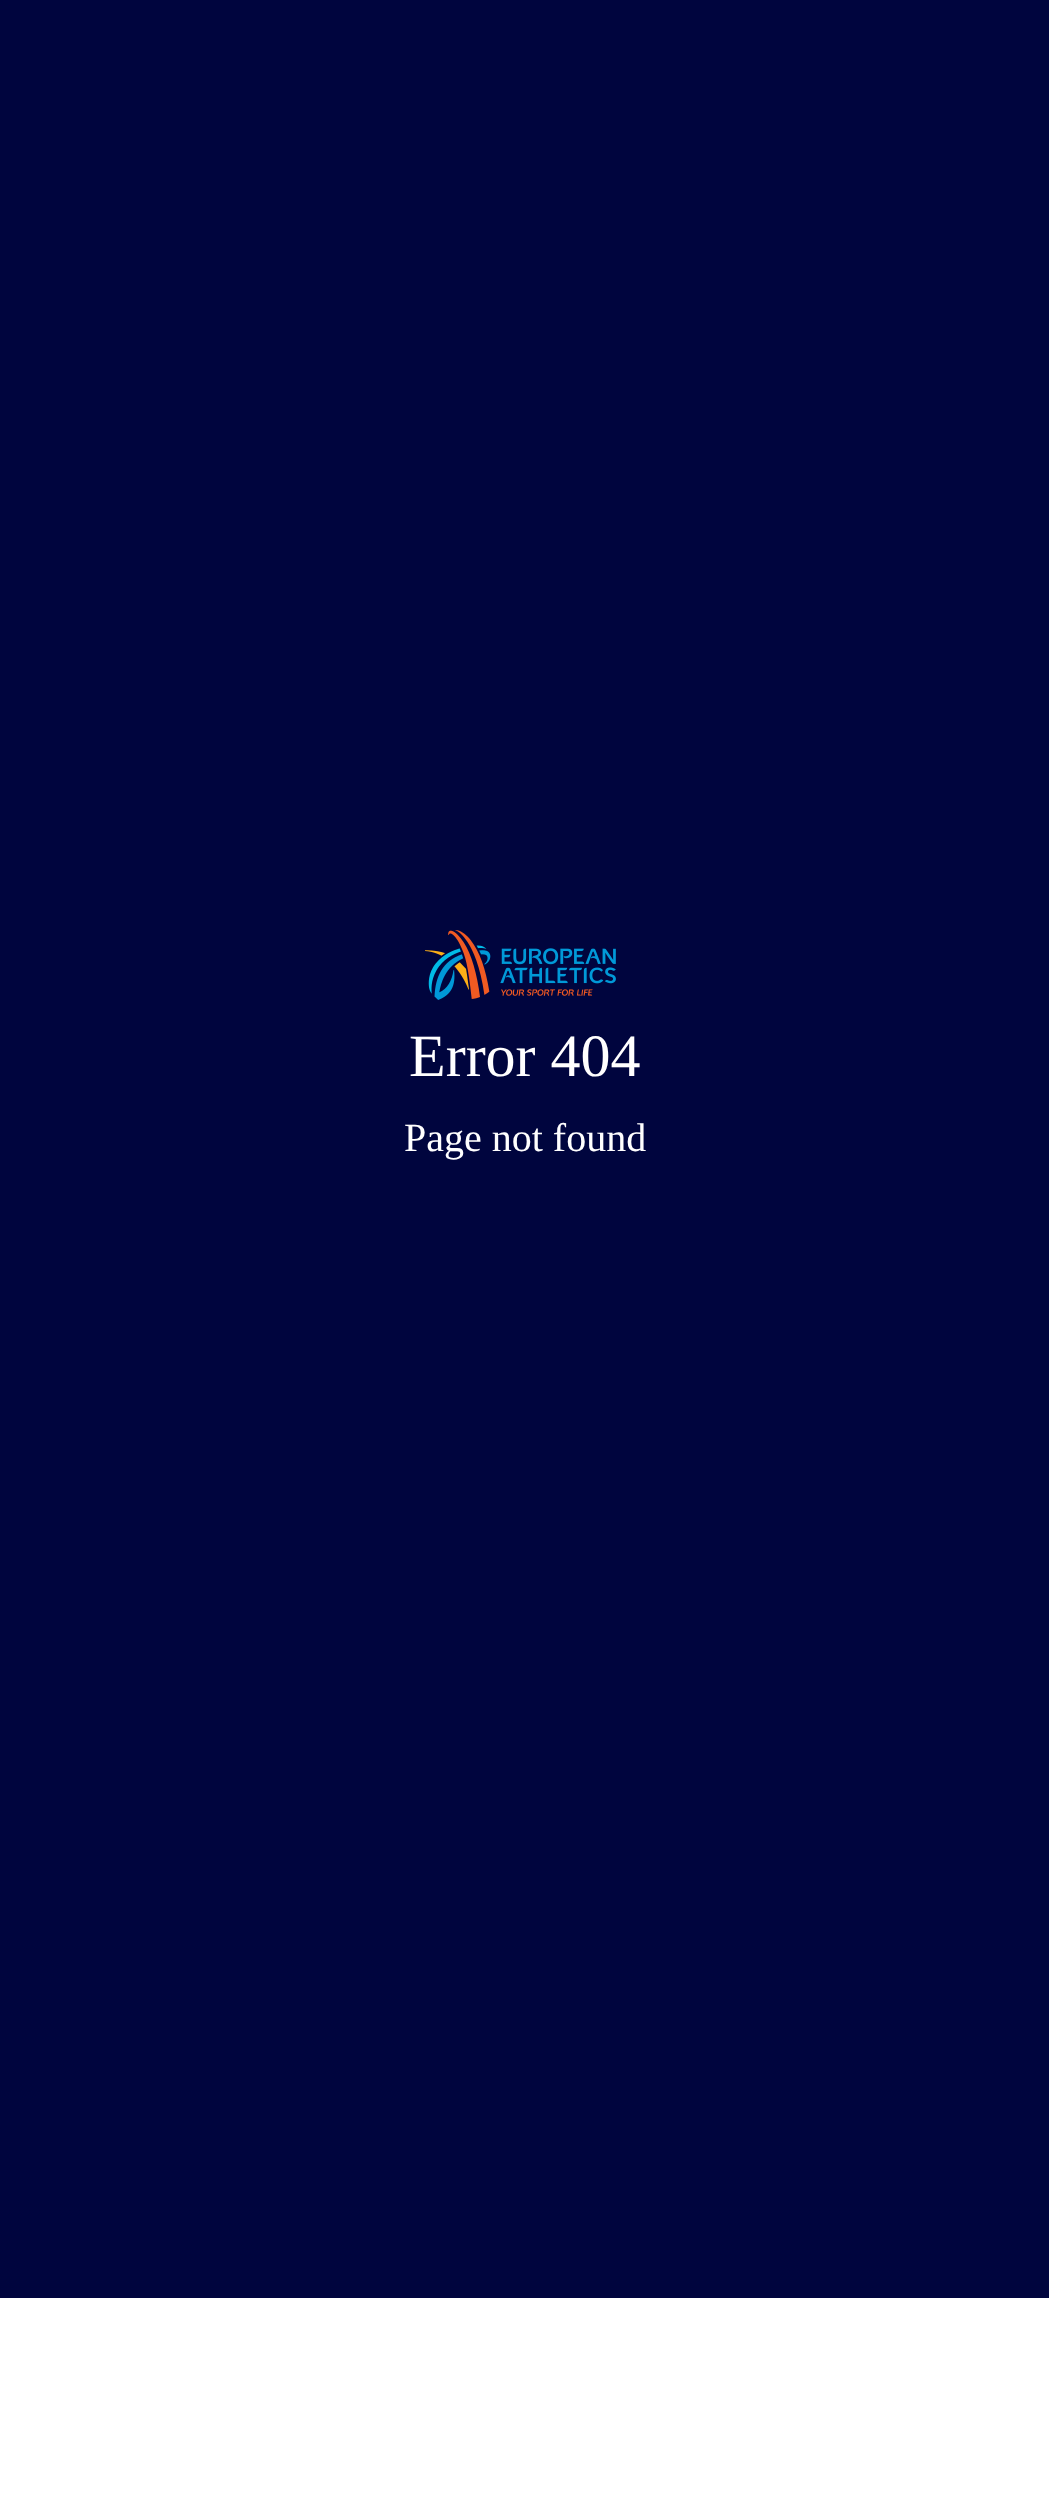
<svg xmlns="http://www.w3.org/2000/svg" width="1049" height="2493">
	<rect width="100%" height="100%" fill="#FFFFFF" />
	<rect x="0" y="0" width="1049" height="2298" fill="#00053E" />
	<image x="425" y="930" width="191" height="70" href="assets/img1.png" />
	<text x="409" y="1076" font-family="Liberation Serif" font-size="60" fill="#FFFFFF">Error 404</text>
	<text x="404" y="1151" font-family="Liberation Serif" font-size="40" fill="#FFFFFF">Page not found</text>
</svg>
